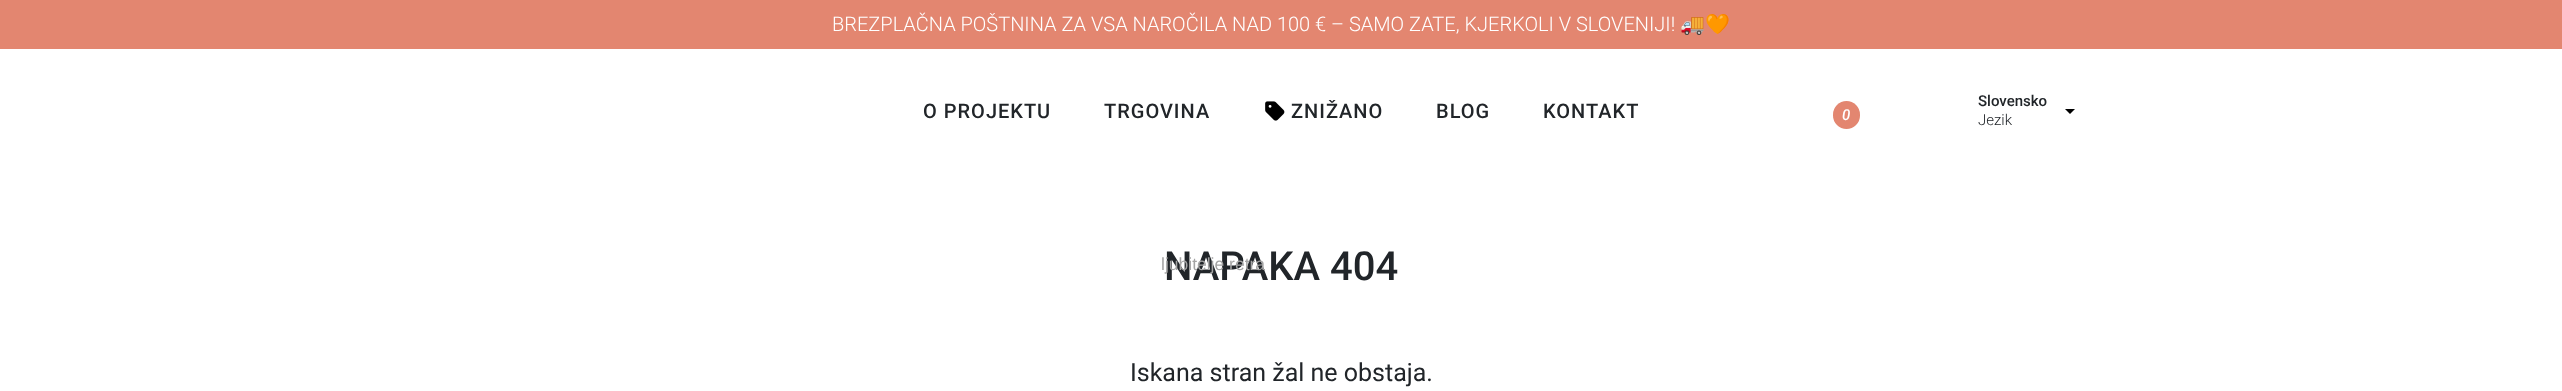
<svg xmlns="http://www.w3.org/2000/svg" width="2562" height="391">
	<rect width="100%" height="100%" fill="#FFFFFF" />
	<rect x="0" y="0" width="2562" height="49" fill="#E38670" />
	<text x="832" y="31" font-family="Roboto" font-size="20" font-weight="300" fill="#FFFFFF">BREZPLAČNA POŠTNINA ZA VSA NAROČILA NAD 100 € – SAMO ZATE, KJERKOLI V SLOVENIJI!</text>
	<text x="1680" y="31" font-family="Noto Color Emoji" font-size="20" fill="#FFFFFF">🚚🧡</text>
	<g font-family="Roboto" font-size="20" font-weight="500" letter-spacing="1" fill="#212529">
		<text x="923" y="118">O PROJEKTU</text>
		<text x="1104" y="118">TRGOVINA</text>
	</g>
	<text x="1164" y="280" font-family="Roboto" font-size="40" font-weight="500" fill="#212529">NAPAKA 404</text>
	<text x="1161" y="270" font-family="Liberation Sans" font-size="17.5" fill="#A4A4A4">ljubitelje retra</text>
	<image x="1265" y="101" width="20" height="20" href="assets/img1.png" />
	<g font-family="Roboto" font-size="20" font-weight="500" letter-spacing="1" fill="#212529">
		<text x="1291" y="118">ZNIŽANO</text>
		<text x="1436" y="118">BLOG</text>
		<text x="1543" y="118">KONTAKT</text>
	</g>
	<rect x="1833" y="101" width="27" height="28" rx="13.5" fill="#E38670" />
	<text x="1842" y="120" font-family="Roboto" font-size="15" font-weight="500" font-style="italic" fill="#FFFFFF">0</text>
	<text x="1978" y="106" font-family="Roboto" font-size="15" font-weight="500" fill="#212529">Slovensko</text>
	<text x="1978" y="125" font-family="Roboto" font-size="15" font-weight="300" fill="#212529">Jezik</text>
	<path d="M2065 109H2075L2070 114Z" fill="#000000" />
	<text x="1130" y="381" font-family="Roboto" font-size="25" fill="#212529">Iskana stran žal ne obstaja.</text>
</svg>
